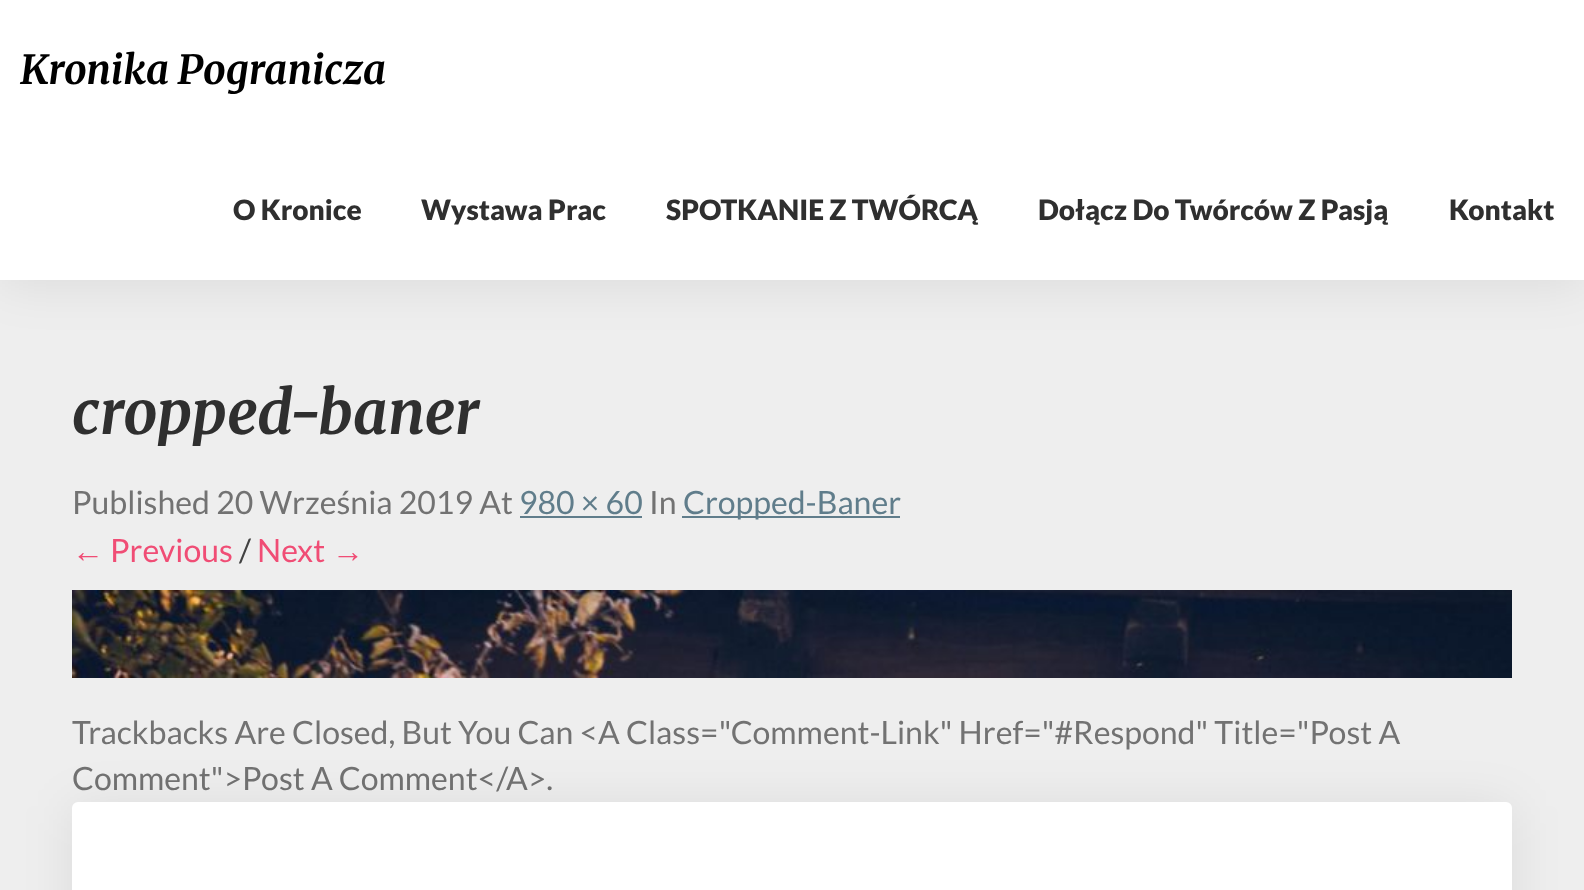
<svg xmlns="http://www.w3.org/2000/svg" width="1584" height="890">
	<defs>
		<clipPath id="clip1"><rect x="72" y="380" width="1440" height="66" /></clipPath>
	</defs>
	<rect width="100%" height="100%" fill="#EEEEEE" />
	<rect x="0" y="4" width="1584" height="280" fill="#000000" fill-opacity="0.08" filter="blur(25px)" />
	<rect x="0" y="0" width="1584" height="280" fill="#FFFFFF" />
	<text x="20" y="84" font-family="Merriweather" font-size="40" font-weight="300" font-style="italic" fill="#000000">Kronika Pogranicza</text>
	<g font-family="Lato" font-size="28" font-weight="900" fill="#2F2F2F">
		<text x="233" y="220">O Kronice</text>
		<text x="421" y="220">Wystawa Prac</text>
		<text x="666" y="220">SPOTKANIE Z TWÓRCĄ</text>
		<text x="1038" y="220">Dołącz Do Twórców Z Pasją</text>
		<text x="1449" y="220">Kontakt</text>
	</g>
	<g clip-path="url(#clip1)">
		<text x="72" y="434" font-family="Merriweather" font-size="60" font-weight="300" font-style="italic" fill="#2F2F2F">cropped-baner</text>
	</g>
	<text x="72" y="514" font-family="Lato" font-size="32" fill="#727272">Published 20 Września 2019 At</text>
	<text x="519" y="514" font-family="Lato" font-size="32" fill="#607D8B">980 × 60</text>
	<rect x="520" y="516" width="122" height="2" fill="#607D8B" />
	<text x="649" y="514" font-family="Lato" font-size="32" fill="#727272">In</text>
	<rect x="682" y="516" width="218" height="2" fill="#607D8B" />
	<text x="683" y="514" font-family="Lato" font-size="32" fill="#607D8B">Cropped-Baner</text>
	<text x="72" y="562" font-family="Liberation Sans" font-size="32" fill="#F04D75">←</text>
	<text x="110" y="562" font-family="Lato" font-size="32" fill="#F04D75">Previous</text>
	<text x="239" y="562" font-family="Lato" font-size="32" fill="#424242">/</text>
	<text x="257" y="562" font-family="Lato" font-size="32" fill="#F04D75">Next</text>
	<text x="332" y="562" font-family="Liberation Sans" font-size="32" fill="#F04D75">→</text>
	<image x="72" y="590" width="1440" height="88" href="assets/img1.png" />
	<g font-family="Lato" font-size="32" fill="#727272">
		<text x="72" y="744">Trackbacks Are Closed, But You Can &lt;A Class="Comment-Link" Href="#Respond" Title="Post A</text>
		<text x="72" y="790">Comment"&gt;Post A Comment&lt;/A&gt;.</text>
	</g>
	<rect x="72" y="806" width="1440" height="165" rx="6" fill="#000000" fill-opacity="0.08" filter="blur(25px)" />
	<rect x="72" y="802" width="1440" height="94" rx="6" fill="#FFFFFF" />
</svg>
